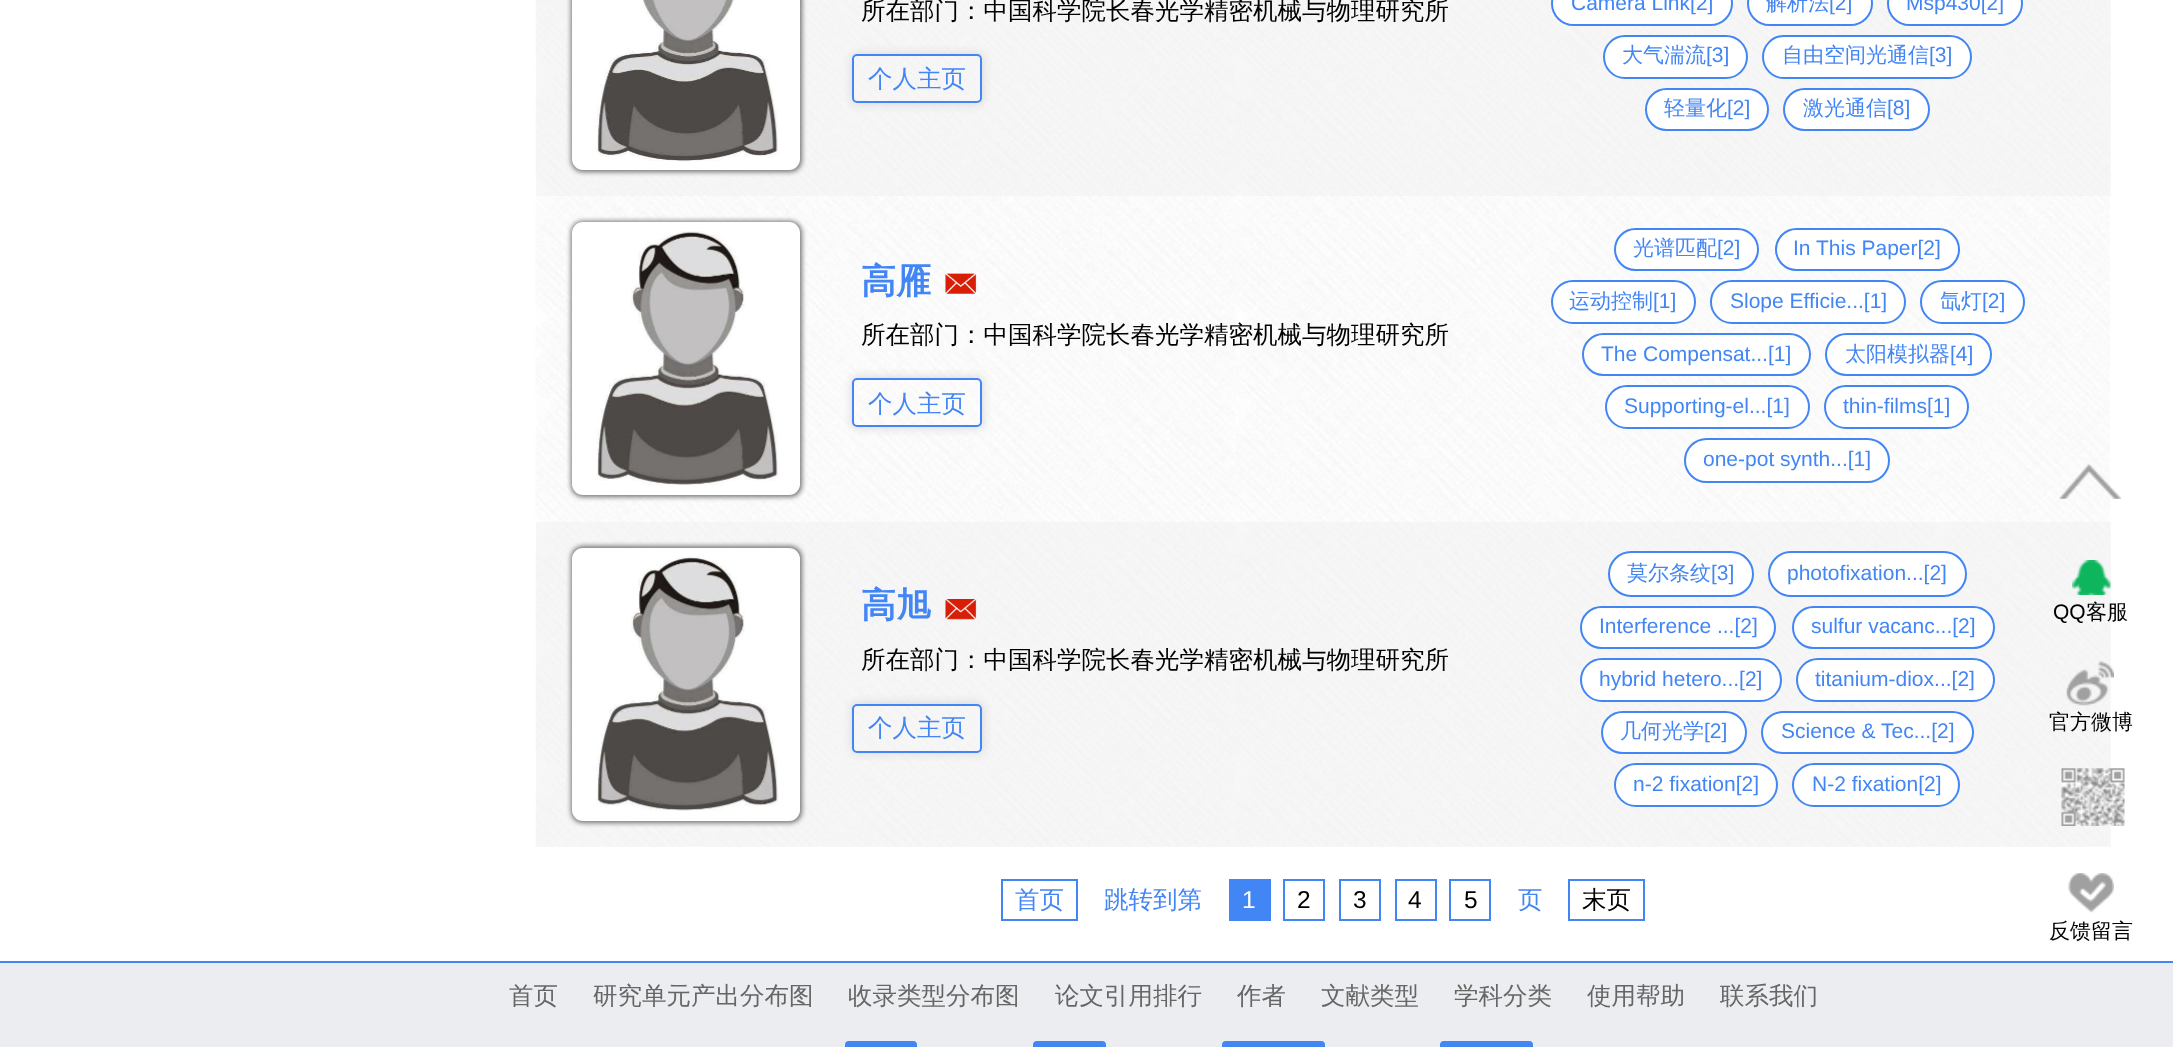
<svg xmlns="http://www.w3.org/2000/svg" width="2173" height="1047">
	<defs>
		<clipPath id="clip1"><path d="M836 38H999V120H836ZM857 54H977C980 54 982 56 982 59V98C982 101 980 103 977 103H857C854 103 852 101 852 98V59C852 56 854 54 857 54Z" clip-rule="evenodd" /></clipPath>
		<clipPath id="clip2"><path d="M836 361H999V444H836ZM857 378H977C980 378 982 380 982 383V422C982 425 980 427 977 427H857C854 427 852 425 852 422V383C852 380 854 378 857 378Z" clip-rule="evenodd" /></clipPath>
		<clipPath id="clip3"><path d="M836 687H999V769H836ZM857 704H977C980 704 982 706 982 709V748C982 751 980 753 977 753H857C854 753 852 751 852 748V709C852 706 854 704 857 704Z" clip-rule="evenodd" /></clipPath>
	</defs>
	<rect width="100%" height="100%" fill="#FFFFFF" />
	<image x="535" y="0" width="1575" height="847" href="assets/img1.png" />
	<rect x="536" y="0" width="1575" height="196" fill="#EFEEEE" fill-opacity="0.41" />
	<rect x="571" y="-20" width="231" height="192" rx="12" fill="#737373" filter="blur(2.5px)" />
	<rect x="572" y="-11" width="228" height="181" rx="11" fill="#FFFFFF" />
	<image x="596" y="0" width="183" height="162" href="assets/img2.png" />
	<text x="861" y="19" font-family="WenQuanYi Zen Hei" font-size="24.5" font-weight="500" fill="#000000">所在部门：中国科学院长春光学精密机械与物理研究所</text>
	<g clip-path="url(#clip1)">
		<rect x="851" y="53" width="133" height="52" rx="7" fill="#DDDDDD" filter="blur(4.5px)" />
	</g>
	<rect x="853" y="55" width="128" height="47" rx="4" fill="none" stroke="#4285F4" stroke-width="2" />
	<text x="868" y="87" font-family="WenQuanYi Zen Hei" font-size="24.5" font-weight="500" fill="#4285F4">个人主页</text>
	<rect x="1552" y="-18" width="180" height="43" rx="21.5" fill="#FFFFFF" stroke="#4285F4" stroke-width="2" />
	<text x="1571" y="10" font-family="Liberation Sans" font-size="21" fill="#4285F4">Camera Link[2]</text>
	<rect x="1748" y="-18" width="124" height="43" rx="21.5" fill="#FFFFFF" stroke="#4285F4" stroke-width="2" />
	<text x="1766" y="10" font-family="WenQuanYi Zen Hei" font-size="21" font-weight="500" fill="#4285F4">解析法</text>
	<text x="1829" y="10" font-family="Liberation Sans" font-size="21" fill="#4285F4">[2]</text>
	<rect x="1888" y="-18" width="134" height="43" rx="21.5" fill="#FFFFFF" stroke="#4285F4" stroke-width="2" />
	<text x="1906" y="10" font-family="Liberation Sans" font-size="21" fill="#4285F4">Msp430[2]</text>
	<rect x="1604" y="36" width="143" height="42" rx="21" fill="#FFFFFF" stroke="#4285F4" stroke-width="2" />
	<text x="1622" y="62" font-family="WenQuanYi Zen Hei" font-size="21" font-weight="500" fill="#4285F4">大气湍流</text>
	<text x="1706" y="62" font-family="Liberation Sans" font-size="21" fill="#4285F4">[3]</text>
	<rect x="1763" y="36" width="208" height="42" rx="21" fill="#FFFFFF" stroke="#4285F4" stroke-width="2" />
	<text x="1782" y="62" font-family="WenQuanYi Zen Hei" font-size="21" font-weight="500" fill="#4285F4">自由空间光通信</text>
	<text x="1929" y="62" font-family="Liberation Sans" font-size="21" fill="#4285F4">[3]</text>
	<rect x="1646" y="89" width="122" height="41" rx="20.5" fill="#FFFFFF" stroke="#4285F4" stroke-width="2" />
	<text x="1664" y="115" font-family="WenQuanYi Zen Hei" font-size="21" font-weight="500" fill="#4285F4">轻量化</text>
	<text x="1727" y="115" font-family="Liberation Sans" font-size="21" fill="#4285F4">[2]</text>
	<rect x="1784" y="89" width="145" height="41" rx="20.5" fill="#FFFFFF" stroke="#4285F4" stroke-width="2" />
	<text x="1803" y="115" font-family="WenQuanYi Zen Hei" font-size="21" font-weight="500" fill="#4285F4">激光通信</text>
	<text x="1887" y="115" font-family="Liberation Sans" font-size="21" fill="#4285F4">[8]</text>
	<rect x="571" y="221" width="231" height="276" rx="12" fill="#737373" filter="blur(2.5px)" />
	<rect x="572" y="222" width="228" height="273" rx="11" fill="#FFFFFF" />
	<image x="596" y="231" width="183" height="254" href="assets/img3.png" />
	<text x="861" y="293" font-family="WenQuanYi Zen Hei" font-size="35" font-weight="700" fill="#4285F4">高雁</text>
	<image x="945" y="273" width="32" height="21" href="assets/img4.png" />
	<text x="861" y="343" font-family="WenQuanYi Zen Hei" font-size="24.5" font-weight="500" fill="#000000">所在部门：中国科学院长春光学精密机械与物理研究所</text>
	<g clip-path="url(#clip2)">
		<rect x="851" y="376" width="133" height="53" rx="7" fill="#DDDDDD" filter="blur(4.5px)" />
	</g>
	<rect x="853" y="379" width="128" height="47" rx="4" fill="none" stroke="#4285F4" stroke-width="2" />
	<text x="868" y="412" font-family="WenQuanYi Zen Hei" font-size="24.5" font-weight="500" fill="#4285F4">个人主页</text>
	<rect x="1615" y="229" width="143" height="41" rx="20.5" fill="#FFFFFF" stroke="#4285F4" stroke-width="2" />
	<text x="1633" y="255" font-family="WenQuanYi Zen Hei" font-size="21" font-weight="500" fill="#4285F4">光谱匹配</text>
	<text x="1717" y="255" font-family="Liberation Sans" font-size="21" fill="#4285F4">[2]</text>
	<rect x="1776" y="229" width="183" height="41" rx="20.5" fill="#FFFFFF" stroke="#4285F4" stroke-width="2" />
	<text x="1793" y="255" font-family="Liberation Sans" font-size="21" fill="#4285F4">In This Paper[2]</text>
	<rect x="1552" y="281" width="143" height="42" rx="21" fill="#FFFFFF" stroke="#4285F4" stroke-width="2" />
	<text x="1569" y="308" font-family="WenQuanYi Zen Hei" font-size="21" font-weight="500" fill="#4285F4">运动控制</text>
	<text x="1653" y="308" font-family="Liberation Sans" font-size="21" fill="#4285F4">[1]</text>
	<rect x="1711" y="281" width="194" height="42" rx="21" fill="#FFFFFF" stroke="#4285F4" stroke-width="2" />
	<text x="1730" y="308" font-family="Liberation Sans" font-size="21" fill="#4285F4">Slope Efficie...[1]</text>
	<rect x="1921" y="281" width="103" height="42" rx="21" fill="#FFFFFF" stroke="#4285F4" stroke-width="2" />
	<text x="1940" y="308" font-family="WenQuanYi Zen Hei" font-size="21" font-weight="500" fill="#4285F4">氙灯</text>
	<text x="1982" y="308" font-family="Liberation Sans" font-size="21" fill="#4285F4">[2]</text>
	<rect x="1583" y="334" width="227" height="41" rx="20.5" fill="#FFFFFF" stroke="#4285F4" stroke-width="2" />
	<text x="1601" y="361" font-family="Liberation Sans" font-size="21" fill="#4285F4">The Compensat...[1]</text>
	<rect x="1826" y="334" width="165" height="41" rx="20.5" fill="#FFFFFF" stroke="#4285F4" stroke-width="2" />
	<text x="1845" y="361" font-family="WenQuanYi Zen Hei" font-size="21" font-weight="500" fill="#4285F4">太阳模拟器</text>
	<text x="1950" y="361" font-family="Liberation Sans" font-size="21" fill="#4285F4">[4]</text>
	<rect x="1606" y="386" width="203" height="42" rx="21" fill="#FFFFFF" stroke="#4285F4" stroke-width="2" />
	<text x="1624" y="413" font-family="Liberation Sans" font-size="21" fill="#4285F4">Supporting-el...[1]</text>
	<rect x="1825" y="386" width="143" height="42" rx="21" fill="#FFFFFF" stroke="#4285F4" stroke-width="2" />
	<text x="1843" y="413" font-family="Liberation Sans" font-size="21" fill="#4285F4">thin-films[1]</text>
	<rect x="1685" y="439" width="204" height="43" rx="21.5" fill="#FFFFFF" stroke="#4285F4" stroke-width="2" />
	<text x="1703" y="466" font-family="Liberation Sans" font-size="21" fill="#4285F4">one-pot synth...[1]</text>
	<rect x="536" y="522" width="1575" height="325" fill="#EFEEEE" fill-opacity="0.41" />
	<rect x="571" y="546" width="231" height="277" rx="12" fill="#737373" filter="blur(2.5px)" />
	<rect x="572" y="548" width="228" height="273" rx="11" fill="#FFFFFF" />
	<image x="596" y="556" width="183" height="255" href="assets/img5.png" />
	<text x="861" y="617" font-family="WenQuanYi Zen Hei" font-size="35" font-weight="700" fill="#4285F4">高旭</text>
	<image x="945" y="599" width="32" height="21" href="assets/img6.png" />
	<text x="861" y="668" font-family="WenQuanYi Zen Hei" font-size="24.5" font-weight="500" fill="#000000">所在部门：中国科学院长春光学精密机械与物理研究所</text>
	<g clip-path="url(#clip3)">
		<rect x="851" y="702" width="133" height="52" rx="7" fill="#DDDDDD" filter="blur(4.5px)" />
	</g>
	<rect x="853" y="705" width="128" height="47" rx="4" fill="none" stroke="#4285F4" stroke-width="2" />
	<text x="868" y="736" font-family="WenQuanYi Zen Hei" font-size="24.5" font-weight="500" fill="#4285F4">个人主页</text>
	<rect x="1609" y="552" width="144" height="44" rx="22" fill="#FFFFFF" stroke="#4285F4" stroke-width="2" />
	<text x="1627" y="580" font-family="WenQuanYi Zen Hei" font-size="21" font-weight="500" fill="#4285F4">莫尔条纹</text>
	<text x="1711" y="580" font-family="Liberation Sans" font-size="21" fill="#4285F4">[3]</text>
	<rect x="1769" y="552" width="197" height="44" rx="22" fill="#FFFFFF" stroke="#4285F4" stroke-width="2" />
	<text x="1787" y="580" font-family="Liberation Sans" font-size="21" fill="#4285F4">photofixation...[2]</text>
	<rect x="1581" y="607" width="194" height="41" rx="20.5" fill="#FFFFFF" stroke="#4285F4" stroke-width="2" />
	<text x="1599" y="633" font-family="Liberation Sans" font-size="21" fill="#4285F4">Interference ...[2]</text>
	<rect x="1793" y="607" width="201" height="41" rx="20.5" fill="#FFFFFF" stroke="#4285F4" stroke-width="2" />
	<text x="1811" y="633" font-family="Liberation Sans" font-size="21" fill="#4285F4">sulfur vacanc...[2]</text>
	<rect x="1581" y="659" width="200" height="42" rx="21" fill="#FFFFFF" stroke="#4285F4" stroke-width="2" />
	<text x="1599" y="686" font-family="Liberation Sans" font-size="21" fill="#4285F4">hybrid hetero...[2]</text>
	<rect x="1797" y="659" width="197" height="42" rx="21" fill="#FFFFFF" stroke="#4285F4" stroke-width="2" />
	<text x="1815" y="686" font-family="Liberation Sans" font-size="21" fill="#4285F4">titanium-diox...[2]</text>
	<rect x="1602" y="712" width="144" height="41" rx="20.5" fill="#FFFFFF" stroke="#4285F4" stroke-width="2" />
	<text x="1620" y="738" font-family="WenQuanYi Zen Hei" font-size="21" font-weight="500" fill="#4285F4">几何光学</text>
	<text x="1704" y="738" font-family="Liberation Sans" font-size="21" fill="#4285F4">[2]</text>
	<rect x="1762" y="712" width="211" height="41" rx="20.5" fill="#FFFFFF" stroke="#4285F4" stroke-width="2" />
	<text x="1781" y="738" font-family="Liberation Sans" font-size="21" fill="#4285F4">Science &amp; Tec...[2]</text>
	<rect x="1615" y="764" width="162" height="42" rx="21" fill="#FFFFFF" stroke="#4285F4" stroke-width="2" />
	<text x="1633" y="791" font-family="Liberation Sans" font-size="21" fill="#4285F4">n-2 fixation[2]</text>
	<rect x="1793" y="764" width="166" height="42" rx="21" fill="#FFFFFF" stroke="#4285F4" stroke-width="2" />
	<text x="1812" y="791" font-family="Liberation Sans" font-size="21" fill="#4285F4">N-2 fixation[2]</text>
	<rect x="1002" y="880" width="75" height="40" fill="none" stroke="#4285F4" stroke-width="2" />
	<g font-family="WenQuanYi Zen Hei" font-size="24.5" font-weight="500" fill="#4285F4">
		<text x="1015" y="908">首页</text>
		<text x="1104" y="908">跳转到第</text>
	</g>
	<rect x="1229" y="879" width="42" height="42" fill="#4285F4" />
	<text x="1242" y="908" font-family="Liberation Sans" font-size="24.5" fill="#FFFFFF">1</text>
	<rect x="1284" y="880" width="40" height="40" fill="none" stroke="#4285F4" stroke-width="2" />
	<text x="1297" y="908" font-family="Liberation Sans" font-size="24.5" fill="#000000">2</text>
	<rect x="1340" y="880" width="40" height="40" fill="none" stroke="#4285F4" stroke-width="2" />
	<text x="1353" y="908" font-family="Liberation Sans" font-size="24.5" fill="#000000">3</text>
	<rect x="1396" y="880" width="40" height="40" fill="none" stroke="#4285F4" stroke-width="2" />
	<text x="1408" y="908" font-family="Liberation Sans" font-size="24.5" fill="#000000">4</text>
	<rect x="1450" y="880" width="40" height="40" fill="none" stroke="#4285F4" stroke-width="2" />
	<text x="1464" y="908" font-family="Liberation Sans" font-size="24.5" fill="#000000">5</text>
	<text x="1518" y="908" font-family="WenQuanYi Zen Hei" font-size="24.5" font-weight="500" fill="#4285F4">页</text>
	<rect x="1569" y="880" width="75" height="40" fill="none" stroke="#4285F4" stroke-width="2" />
	<text x="1582" y="908" font-family="WenQuanYi Zen Hei" font-size="24.5" font-weight="500" fill="#000000">末页</text>
	<image x="2059" y="463" width="62" height="36" href="assets/img7.png" />
	<image x="2072" y="560" width="39" height="35" href="assets/img8.png" />
	<text x="2053" y="619" font-family="Liberation Sans" font-size="21" fill="#000000">QQ</text>
	<text x="2086" y="619" font-family="WenQuanYi Zen Hei" font-size="21" font-weight="500" fill="#000000">客服</text>
	<image x="2066" y="661" width="48" height="45" href="assets/img9.png" />
	<text x="2049" y="729" font-family="WenQuanYi Zen Hei" font-size="21" font-weight="500" fill="#000000">官方微博</text>
	<image x="2061" y="768" width="64" height="58" href="assets/img10.png" />
	<image x="2068" y="873" width="46" height="40" href="assets/img11.png" />
	<text x="2049" y="938" font-family="WenQuanYi Zen Hei" font-size="21" font-weight="500" fill="#000000">反馈留言</text>
	<rect x="0" y="963" width="2173" height="84" fill="#ECEDF1" />
	<rect x="0" y="961" width="2173" height="2" fill="#4285F4" />
	<g font-family="WenQuanYi Zen Hei" font-size="24.5" font-weight="500" fill="#666666">
		<text x="509" y="1004">首页</text>
		<text x="593" y="1004">研究单元产出分布图</text>
		<text x="848" y="1004">收录类型分布图</text>
		<text x="1055" y="1004">论文引用排行</text>
		<text x="1237" y="1004">作者</text>
		<text x="1321" y="1004">文献类型</text>
		<text x="1454" y="1004">学科分类</text>
		<text x="1587" y="1004">使用帮助</text>
		<text x="1720" y="1004">联系我们</text>
	</g>
	<rect x="845" y="1041" width="72" height="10" rx="4" fill="#4285F4" />
	<rect x="1033" y="1041" width="73" height="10" rx="4" fill="#4285F4" />
	<rect x="1222" y="1041" width="103" height="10" rx="4" fill="#4285F4" />
	<rect x="1440" y="1041" width="93" height="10" rx="4" fill="#4285F4" />
</svg>
